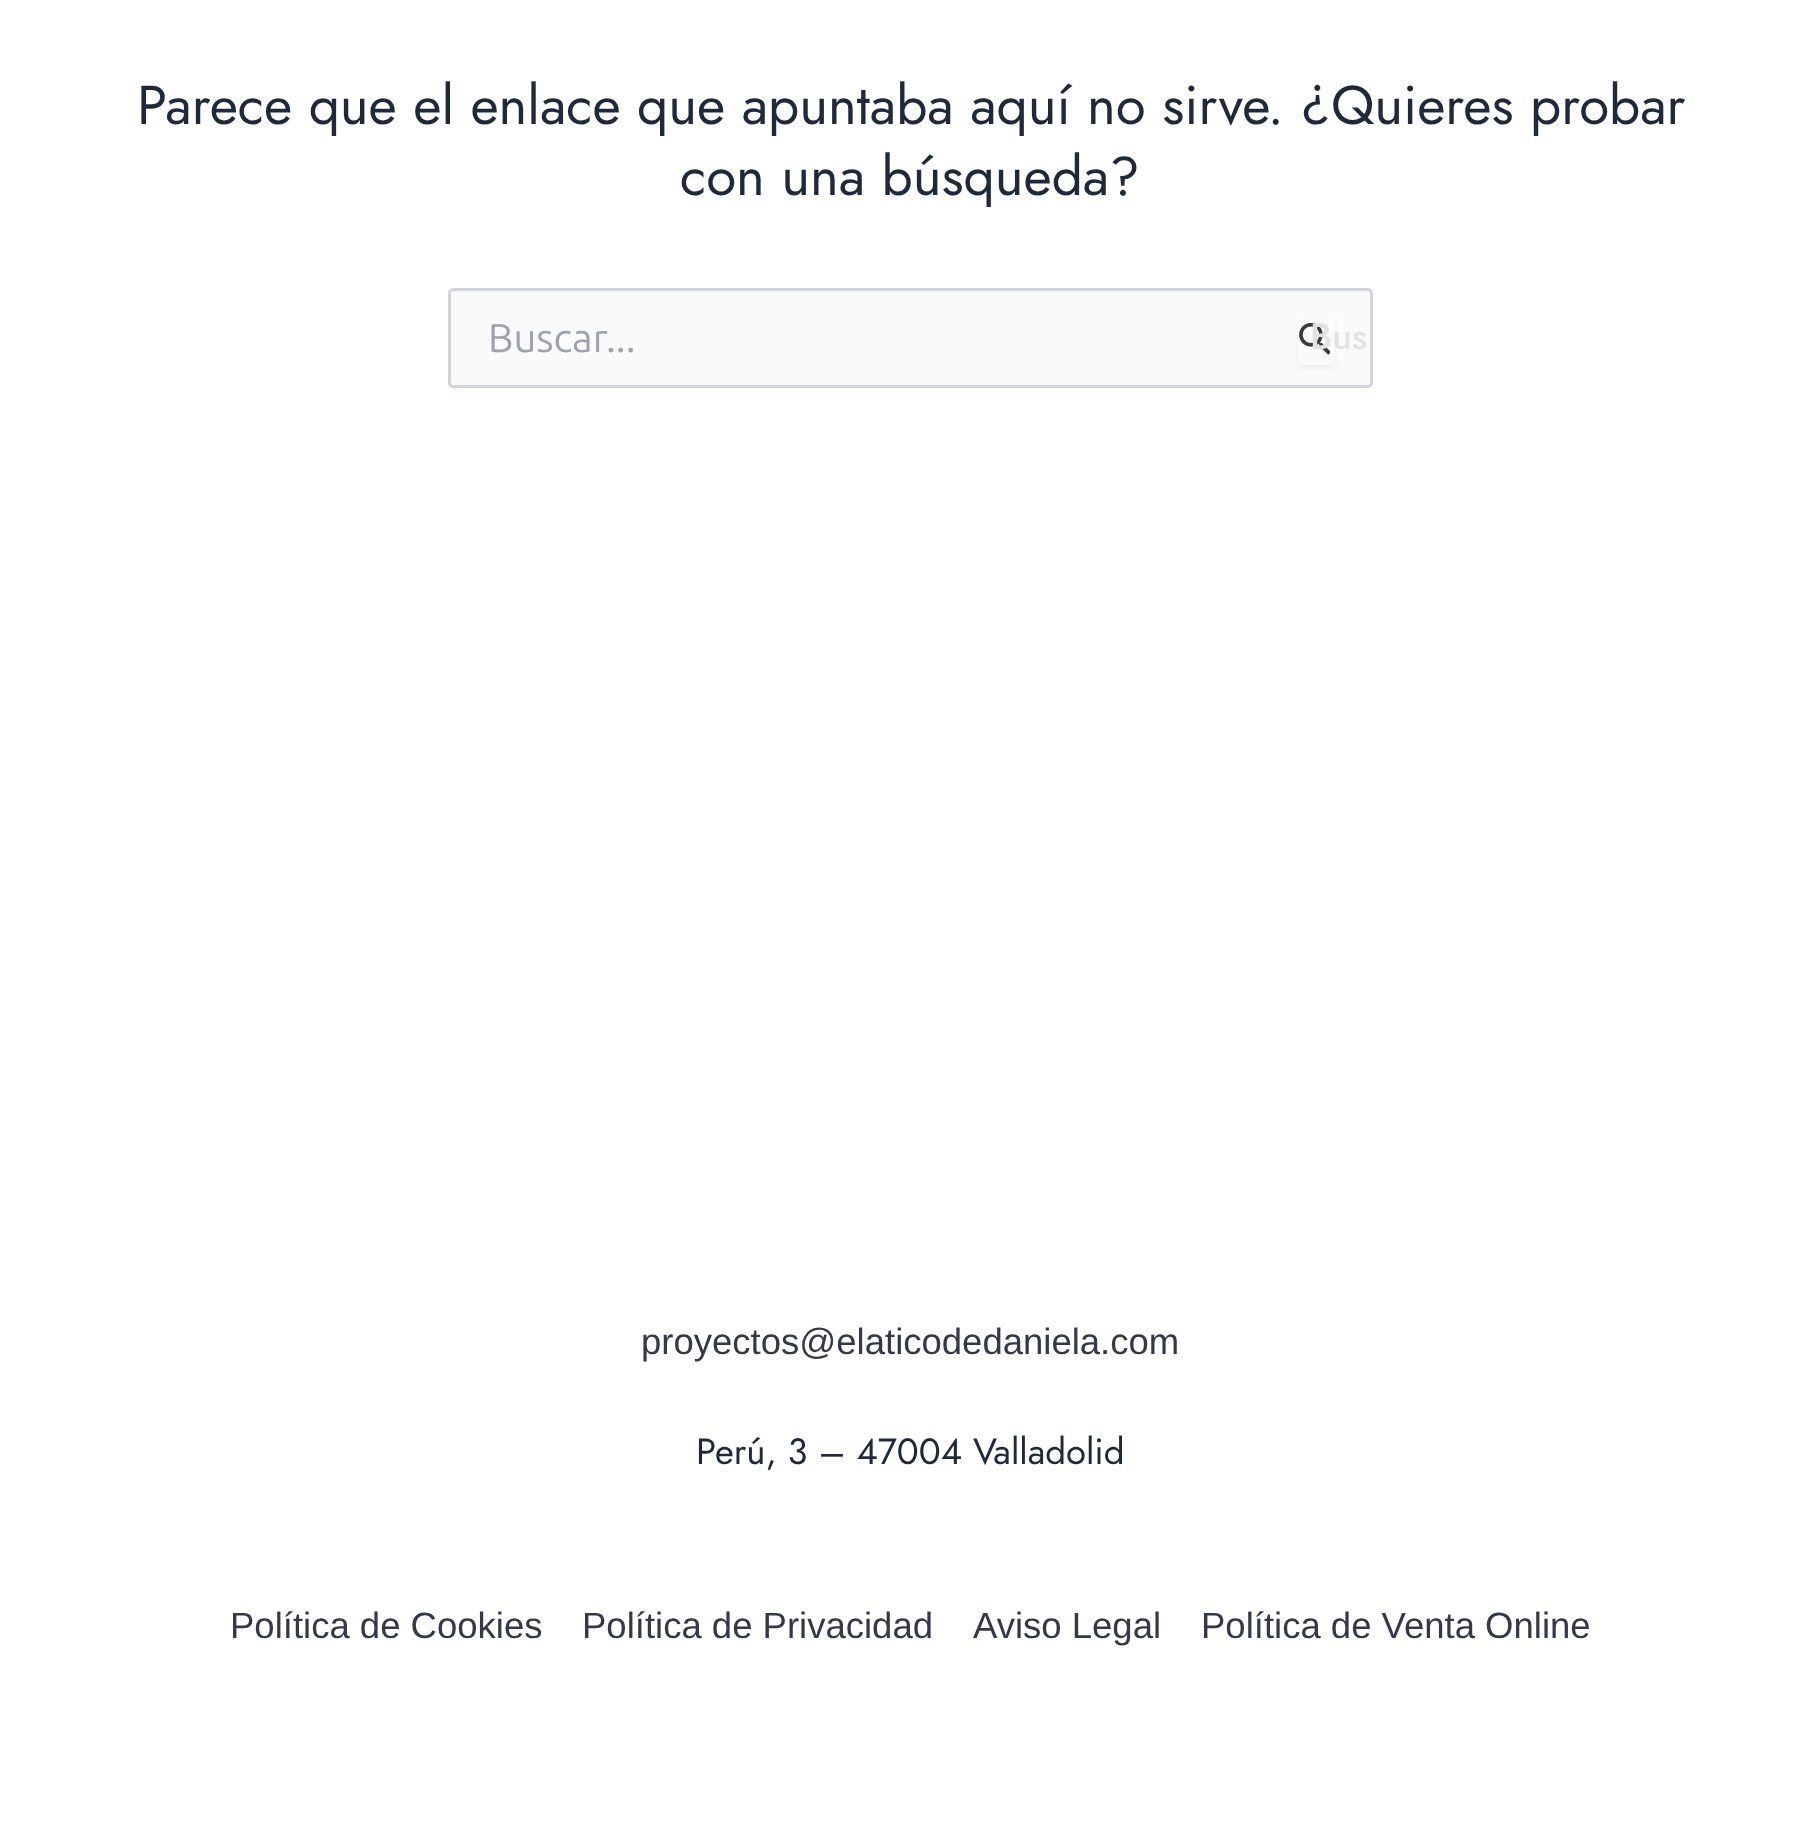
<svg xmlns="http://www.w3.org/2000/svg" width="1819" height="1838">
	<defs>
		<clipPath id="clip1"><path d="M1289 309H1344V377H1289ZM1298 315H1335V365H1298Z" clip-rule="evenodd" /></clipPath>
	</defs>
	<rect width="100%" height="100%" fill="#FFFFFF" />
	<g font-family="Jost" font-size="54.75" fill="#1E293B">
		<text x="137" y="124">Parece que el enlace que apuntaba aquí no sirve. ¿Quieres probar</text>
		<text x="680" y="195">con una búsqueda?</text>
	</g>
	<rect x="449.5" y="289.5" width="922" height="97" rx="3.5" fill="#FAFAFA" stroke="#D1D5DB" stroke-width="3" />
	<text x="488" y="352" font-family="Ubuntu" font-size="40" fill="#9CA3AF">Buscar...</text>
	<g clip-path="url(#clip1)">
		<rect x="1298" y="318" width="37" height="50" fill="#000000" fill-opacity="0.05" filter="blur(2.5px)" />
	</g>
	<image x="1299" y="323" width="31" height="32" href="assets/img1.png" />
	<text x="1310" y="349" font-family="Jost" font-size="36.5" font-weight="500" fill="#E2E2E2">Bus</text>
	<text x="641" y="1354" font-family="Liberation Sans" font-size="36.5" fill="#353849">proyectos@elaticodedaniela.com</text>
	<text x="696" y="1464" font-family="Jost" font-size="36.5" fill="#1E293B">Perú, 3 – 47004 Valladolid</text>
	<g font-family="Liberation Sans" font-size="36.5" fill="#353849">
		<text x="230" y="1638">Política de Cookies</text>
		<text x="582" y="1638">Política de Privacidad</text>
		<text x="973" y="1638">Aviso Legal</text>
		<text x="1201" y="1638">Política de Venta Online</text>
	</g>
</svg>
